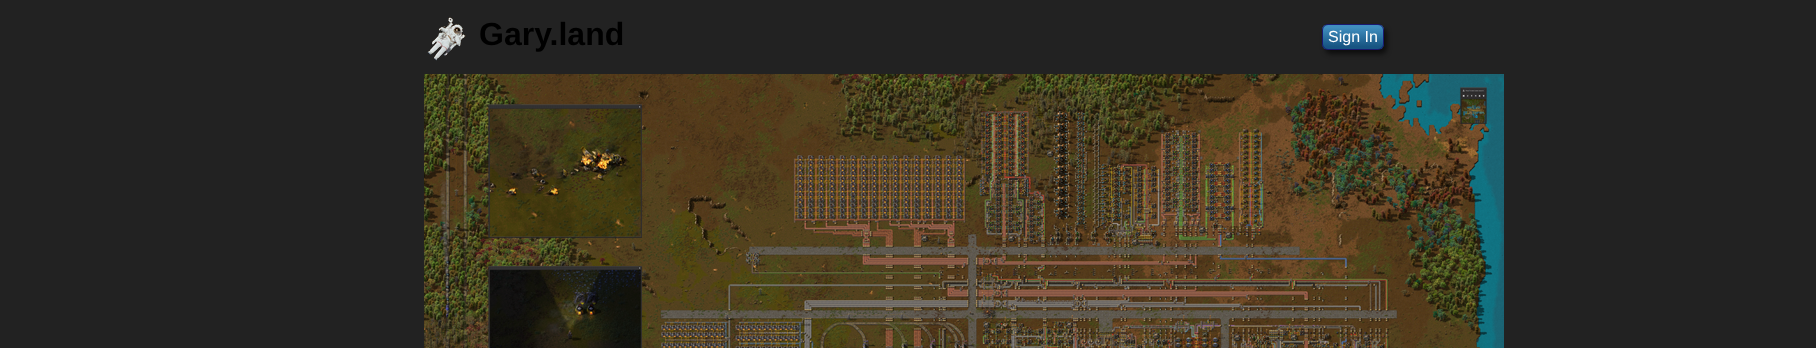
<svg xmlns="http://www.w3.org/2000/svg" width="1816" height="348">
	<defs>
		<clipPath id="clip1"><rect x="1322" y="24" width="62" height="26" rx="6" /></clipPath>
		<linearGradient id="g1" gradientUnits="userSpaceOnUse" x1="1353" y1="25" x2="1353" y2="49"><stop offset="0.1" stop-color="#408EBF" /><stop offset="0.9" stop-color="#175482" /></linearGradient>
	</defs>
	<rect width="100%" height="100%" fill="#222222" />
	<image x="427" y="17" width="39" height="44" href="assets/img1.png" />
	<text x="479" y="45" font-family="Liberation Sans" font-size="32" font-weight="700" fill="#000000">Gary.land</text>
	<rect x="1325" y="28" width="62" height="26" rx="6" fill="#000000" fill-opacity="0.6" filter="blur(2.5px)" />
	<g clip-path="url(#clip1)">
		<rect x="1322" y="25" width="62" height="24" fill="url(#g1)" />
	</g>
	<rect x="1322.5" y="24.5" width="61" height="25" rx="5.5" fill="none" stroke="#191970" />
	<text x="1328" y="42" font-family="Liberation Sans" font-size="16" fill="#FFFFFF">Sign In</text>
	<image x="424" y="74" width="1080" height="274" href="assets/img2.png" />
</svg>
